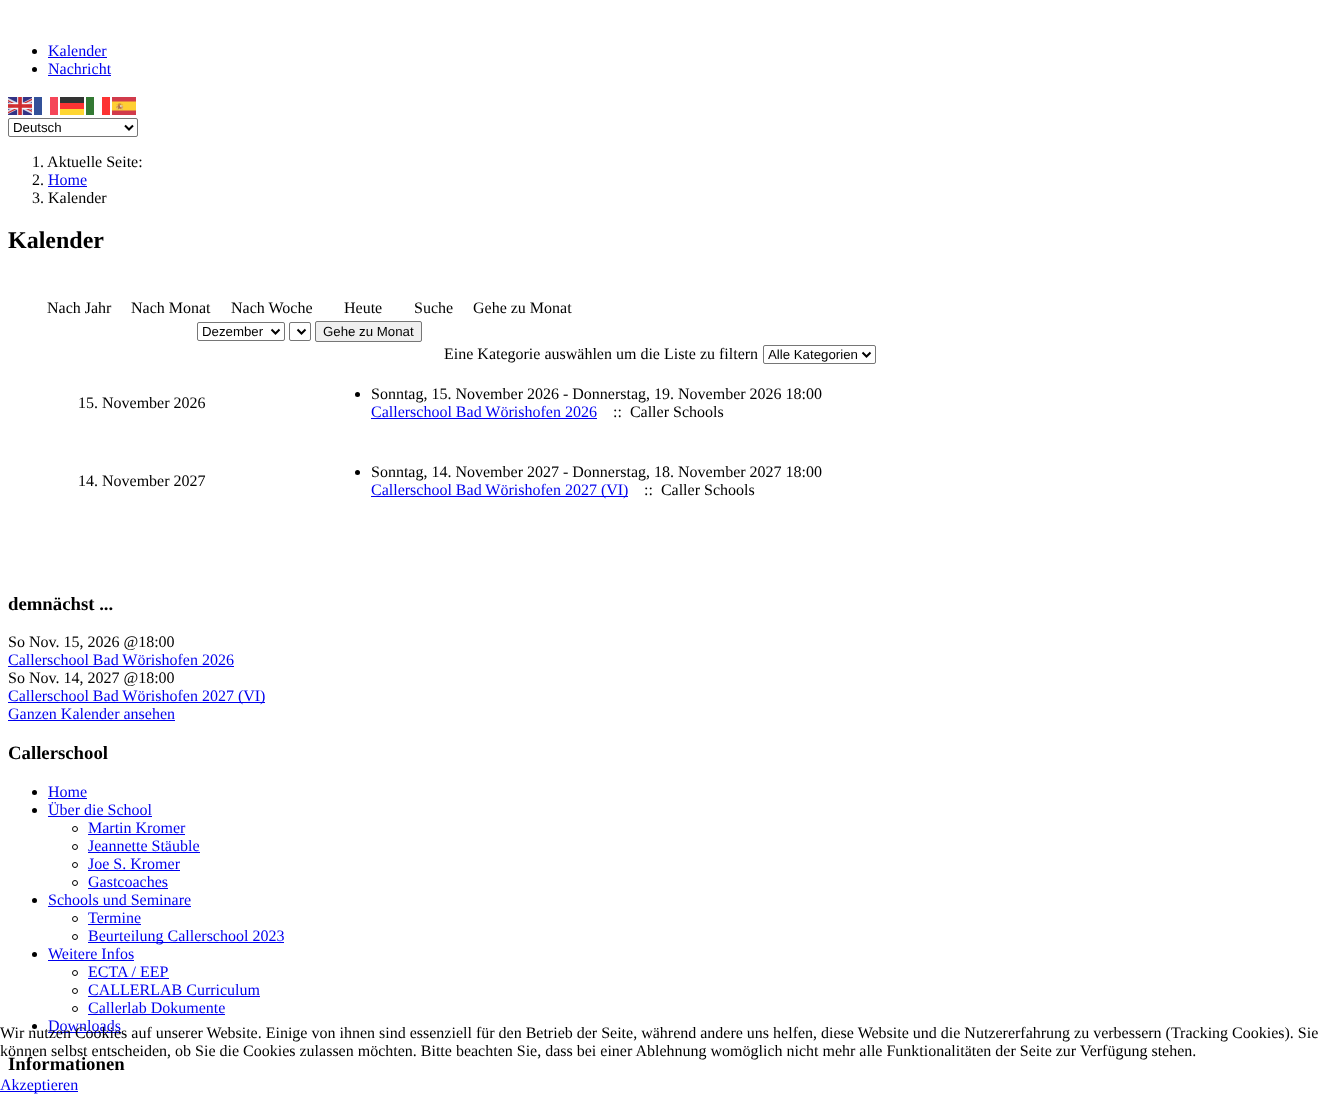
<svg xmlns="http://www.w3.org/2000/svg" width="1320" height="1094">
	<rect width="100%" height="100%" fill="#FFFFFF" />
	<circle cx="34.5" cy="51.5" r="2.5" fill="#000000" />
	<text x="48" y="56" font-family="Liberation Serif" font-size="16" fill="#0000EE">Kalender</text>
	<rect x="48" y="57" width="59" height="1" fill="#0000EE" />
	<circle cx="34.5" cy="69.5" r="2.5" fill="#000000" />
	<text x="48" y="74" font-family="Liberation Serif" font-size="16" fill="#0000EE">Nachricht</text>
	<rect x="48" y="75" width="63" height="1" fill="#0000EE" />
	<image x="8" y="97" width="24" height="18" href="assets/img1.png" />
	<rect x="34" y="97" width="8" height="18" fill="#335199" />
	<rect x="50" y="97" width="8" height="18" fill="#F54659" />
	<rect x="60" y="97" width="24" height="6" fill="#333333" />
	<rect x="86" y="97" width="8" height="18" fill="#337933" />
	<rect x="102" y="97" width="8" height="18" fill="#FD3333" />
	<image x="112" y="97" width="24" height="18" href="assets/img2.png" />
	<rect x="60" y="103" width="24" height="6" fill="#FF3333" />
	<rect x="60" y="109" width="24" height="6" fill="#FFD633" />
	<rect x="8.5" y="118.5" width="129" height="18" rx="1.5" fill="none" stroke="#767676" />
	<path d="M125 125.5L129 129.5L133 125.5" fill="none" stroke="#000000" stroke-width="2" />
	<text x="13" y="132" font-family="Liberation Sans" font-size="13.25" fill="#000000">Deutsch</text>
	<g font-family="Liberation Serif" font-size="16" fill="#000000">
		<text x="32" y="167">1. Aktuelle Seite:</text>
		<text x="32" y="185">2.</text>
	</g>
	<text x="48" y="185" font-family="Liberation Serif" font-size="16" fill="#0000EE">Home</text>
	<rect x="48" y="186" width="39" height="1" fill="#0000EE" />
	<text x="32" y="203" font-family="Liberation Serif" font-size="16" fill="#000000">3. Kalender</text>
	<text x="8" y="248" font-family="Liberation Serif" font-size="24" font-weight="700" fill="#000000">Kalender</text>
	<g font-family="Liberation Serif" font-size="16" fill="#000000">
		<text x="47" y="313">Nach Jahr</text>
		<text x="131" y="313">Nach Monat</text>
		<text x="231" y="313">Nach Woche</text>
		<text x="344" y="313">Heute</text>
		<text x="414" y="313">Suche</text>
		<text x="473" y="313">Gehe zu Monat</text>
	</g>
	<rect x="197.5" y="322.5" width="87" height="18" rx="1.5" fill="none" stroke="#767676" />
	<path d="M271.5 329.5L275.5 333.5L279.5 329.5" fill="none" stroke="#000000" stroke-width="2" />
	<text x="202" y="336" font-family="Liberation Sans" font-size="13.25" fill="#000000">Dezember</text>
	<rect x="289.5" y="322.5" width="21" height="18" rx="1.5" fill="none" stroke="#767676" />
	<path d="M297.5 329.5L301.5 333.5L305.5 329.5" fill="none" stroke="#000000" stroke-width="2" />
	<rect x="315.5" y="321.5" width="106" height="20" rx="1.5" fill="#EFEFEF" stroke="#767676" />
	<text x="323" y="336" font-family="Liberation Sans" font-size="13.25" fill="#000000">Gehe zu Monat</text>
	<text x="444" y="359" font-family="Liberation Serif" font-size="16" fill="#000000">Eine Kategorie auswählen um die Liste zu filtern</text>
	<rect x="763.5" y="345.5" width="112" height="18" rx="1.5" fill="none" stroke="#767676" />
	<path d="M862.5 352.5L866.5 356.5L870.5 352.5" fill="none" stroke="#000000" stroke-width="2" />
	<text x="768" y="359" font-family="Liberation Sans" font-size="13.25" fill="#000000">Alle Kategorien</text>
	<text x="78" y="408" font-family="Liberation Serif" font-size="16" fill="#000000">15. November 2026</text>
	<circle cx="357.5" cy="394.5" r="2.5" fill="#000000" />
	<text x="371" y="399" font-family="Liberation Serif" font-size="16" fill="#000000">Sonntag, 15. November 2026 - Donnerstag, 19. November 2026 18:00</text>
	<text x="371" y="417" font-family="Liberation Serif" font-size="16" fill="#0000EE">Callerschool Bad Wörishofen 2026</text>
	<rect x="371" y="418" width="226" height="1" fill="#0000EE" />
	<g font-family="Liberation Serif" font-size="16" fill="#000000">
		<text x="613" y="417" xml:space="preserve">::  Caller Schools</text>
		<text x="78" y="486">14. November 2027</text>
	</g>
	<circle cx="357.5" cy="472.5" r="2.5" fill="#000000" />
	<text x="371" y="477" font-family="Liberation Serif" font-size="16" fill="#000000">Sonntag, 14. November 2027 - Donnerstag, 18. November 2027 18:00</text>
	<rect x="371" y="496" width="257" height="1" fill="#0000EE" />
	<text x="371" y="495" font-family="Liberation Serif" font-size="16" fill="#0000EE">Callerschool Bad Wörishofen 2027 (VI)</text>
	<text x="644" y="495" font-family="Liberation Serif" font-size="16" fill="#000000" xml:space="preserve">::  Caller Schools</text>
	<text x="8" y="610" font-family="Liberation Serif" font-size="18.75" font-weight="700" fill="#000000">demnächst ...</text>
	<text x="8" y="647" font-family="Liberation Serif" font-size="16" fill="#000000">So Nov. 15, 2026 @18:00</text>
	<text x="8" y="665" font-family="Liberation Serif" font-size="16" fill="#0000EE">Callerschool Bad Wörishofen 2026</text>
	<rect x="8" y="666" width="226" height="1" fill="#0000EE" />
	<text x="8" y="683" font-family="Liberation Serif" font-size="16" fill="#000000">So Nov. 14, 2027 @18:00</text>
	<rect x="8" y="702" width="257" height="1" fill="#0000EE" />
	<g font-family="Liberation Serif" font-size="16" fill="#0000EE">
		<text x="8" y="701">Callerschool Bad Wörishofen 2027 (VI)</text>
		<text x="8" y="719">Ganzen Kalender ansehen</text>
	</g>
	<rect x="8" y="720" width="167" height="1" fill="#0000EE" />
	<text x="8" y="759" font-family="Liberation Serif" font-size="18.75" font-weight="700" fill="#000000">Callerschool</text>
	<circle cx="34.5" cy="792.5" r="2.5" fill="#000000" />
	<text x="48" y="797" font-family="Liberation Serif" font-size="16" fill="#0000EE">Home</text>
	<rect x="48" y="798" width="39" height="1" fill="#0000EE" />
	<circle cx="34.5" cy="810.5" r="2.5" fill="#000000" />
	<text x="48" y="815" font-family="Liberation Serif" font-size="16" fill="#0000EE">Über die School</text>
	<rect x="48" y="816" width="104" height="1" fill="#0000EE" />
	<circle cx="75" cy="829" r="2.5" fill="none" stroke="#000000" />
	<text x="88" y="833" font-family="Liberation Serif" font-size="16" fill="#0000EE">Martin Kromer</text>
	<rect x="88" y="834" width="97" height="1" fill="#0000EE" />
	<circle cx="75" cy="847" r="2.5" fill="none" stroke="#000000" />
	<text x="88" y="851" font-family="Liberation Serif" font-size="16" fill="#0000EE">Jeannette Stäuble</text>
	<rect x="88" y="852" width="112" height="1" fill="#0000EE" />
	<circle cx="75" cy="865" r="2.5" fill="none" stroke="#000000" />
	<text x="88" y="869" font-family="Liberation Serif" font-size="16" fill="#0000EE">Joe S. Kromer</text>
	<rect x="88" y="870" width="92" height="1" fill="#0000EE" />
	<circle cx="75" cy="883" r="2.5" fill="none" stroke="#000000" />
	<text x="88" y="887" font-family="Liberation Serif" font-size="16" fill="#0000EE">Gastcoaches</text>
	<rect x="88" y="888" width="80" height="1" fill="#0000EE" />
	<circle cx="34.5" cy="900.5" r="2.5" fill="#000000" />
	<text x="48" y="905" font-family="Liberation Serif" font-size="16" fill="#0000EE">Schools und Seminare</text>
	<rect x="48" y="906" width="143" height="1" fill="#0000EE" />
	<circle cx="75" cy="919" r="2.5" fill="none" stroke="#000000" />
	<text x="88" y="923" font-family="Liberation Serif" font-size="16" fill="#0000EE">Termine</text>
	<rect x="88" y="924" width="53" height="1" fill="#0000EE" />
	<circle cx="75" cy="937" r="2.5" fill="none" stroke="#000000" />
	<rect x="88" y="942" width="196" height="1" fill="#0000EE" />
	<text x="88" y="941" font-family="Liberation Serif" font-size="16" fill="#0000EE">Beurteilung Callerschool 2023</text>
	<circle cx="34.5" cy="954.5" r="2.5" fill="#000000" />
	<text x="48" y="959" font-family="Liberation Serif" font-size="16" fill="#0000EE">Weitere Infos</text>
	<rect x="48" y="960" width="86" height="1" fill="#0000EE" />
	<circle cx="75" cy="973" r="2.5" fill="none" stroke="#000000" />
	<text x="88" y="977" font-family="Liberation Serif" font-size="16" fill="#0000EE">ECTA / EEP</text>
	<rect x="88" y="978" width="81" height="1" fill="#0000EE" />
	<circle cx="75" cy="991" r="2.5" fill="none" stroke="#000000" />
	<text x="88" y="995" font-family="Liberation Serif" font-size="16" fill="#0000EE">CALLERLAB Curriculum</text>
	<rect x="88" y="996" width="172" height="1" fill="#0000EE" />
	<circle cx="75" cy="1009" r="2.5" fill="none" stroke="#000000" />
	<text x="88" y="1013" font-family="Liberation Serif" font-size="16" fill="#0000EE">Callerlab Dokumente</text>
	<rect x="88" y="1014" width="137" height="1" fill="#0000EE" />
	<circle cx="34.5" cy="1026.5" r="2.5" fill="#000000" />
	<text x="48" y="1031" font-family="Liberation Serif" font-size="16" fill="#0000EE">Downloads</text>
	<rect x="48" y="1032" width="73" height="1" fill="#0000EE" />
	<text x="8" y="1070" font-family="Liberation Serif" font-size="18.75" font-weight="700" fill="#000000">Informationen</text>
	<g font-family="Liberation Serif" font-size="16" fill="#000000">
		<text x="0" y="1038">Wir nutzen Cookies auf unserer Website. Einige von ihnen sind essenziell für den Betrieb der Seite, während andere uns helfen, diese Website und die Nutzererfahrung zu verbessern (Tracking Cookies). Sie</text>
		<text x="0" y="1056">können selbst entscheiden, ob Sie die Cookies zulassen möchten. Bitte beachten Sie, dass bei einer Ablehnung womöglich nicht mehr alle Funktionalitäten der Seite zur Verfügung stehen.</text>
	</g>
	<rect x="0" y="1091" width="78" height="1" fill="#0000EE" />
	<text x="0" y="1090" font-family="Liberation Serif" font-size="16" fill="#0000EE">Akzeptieren</text>
</svg>
